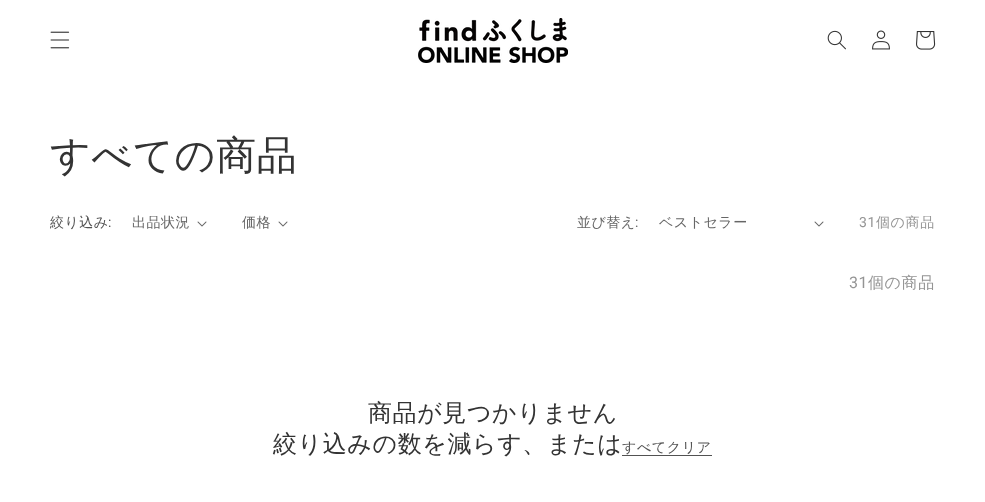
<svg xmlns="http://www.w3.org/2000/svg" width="985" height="502">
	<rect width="100%" height="100%" fill="#FFFFFF" />
	<image x="50" y="31" width="20" height="18" href="assets/img1.png" />
	<image x="418" y="18" width="150" height="45" href="assets/img2.png" />
	<image x="827" y="30" width="19" height="20" href="assets/img3.png" />
	<image x="872" y="30" width="18" height="20" href="assets/img4.png" />
	<image x="916" y="31" width="20" height="19" href="assets/img5.png" />
	<text x="50" y="169" font-family="WenQuanYi Zen Hei" font-size="40" font-weight="500" letter-spacing="0.6" fill="#333333">すべての商品</text>
	<text x="50" y="227" font-family="WenQuanYi Zen Hei" font-size="14" font-weight="500" letter-spacing="0.5" fill="#525252">絞り込み</text>
	<text x="108" y="227" font-family="Roboto" font-size="14" letter-spacing="0.5" fill="#525252">:</text>
	<text x="132" y="227" font-family="WenQuanYi Zen Hei" font-size="14" font-weight="500" letter-spacing="0.5" fill="#666666">出品状況</text>
	<image x="197" y="221" width="10" height="6" href="assets/img6.png" />
	<text x="242" y="227" font-family="WenQuanYi Zen Hei" font-size="14" font-weight="500" letter-spacing="0.5" fill="#666666">価格</text>
	<image x="278" y="221" width="10" height="6" href="assets/img6.png" />
	<text x="577" y="227" font-family="WenQuanYi Zen Hei" font-size="14" font-weight="500" letter-spacing="0.5" fill="#666666">並び替え</text>
	<text x="635" y="227" font-family="Roboto" font-size="14" letter-spacing="0.5" fill="#666666">:</text>
	<text x="659" y="227" font-family="WenQuanYi Zen Hei" font-size="14" font-weight="500" letter-spacing="0.5" fill="#666666">ベストセラー</text>
	<image x="814" y="221" width="10" height="6" href="assets/img6.png" />
	<text x="859" y="227" font-family="Roboto" font-size="14" letter-spacing="0.6" fill="#949494">31</text>
	<text x="876" y="227" font-family="WenQuanYi Zen Hei" font-size="14" font-weight="500" letter-spacing="0.6" fill="#949494">個の商品</text>
	<text x="849" y="288" font-family="Roboto" font-size="16" letter-spacing="0.6" fill="#949494">31</text>
	<text x="868" y="288" font-family="WenQuanYi Zen Hei" font-size="16" font-weight="500" letter-spacing="0.6" fill="#949494">個の商品</text>
	<g font-family="WenQuanYi Zen Hei" font-size="24" font-weight="500" letter-spacing="0.6" fill="#333333">
		<text x="368" y="421">商品が見つかりません</text>
		<text x="273" y="452">絞り込みの数を減らす、または</text>
	</g>
	<text x="622" y="452" font-family="WenQuanYi Zen Hei" font-size="14" font-weight="500" letter-spacing="0.6" fill="#525252">すべてクリア</text>
	<rect x="622" y="455" width="90" height="1" fill="#525252" />
</svg>
